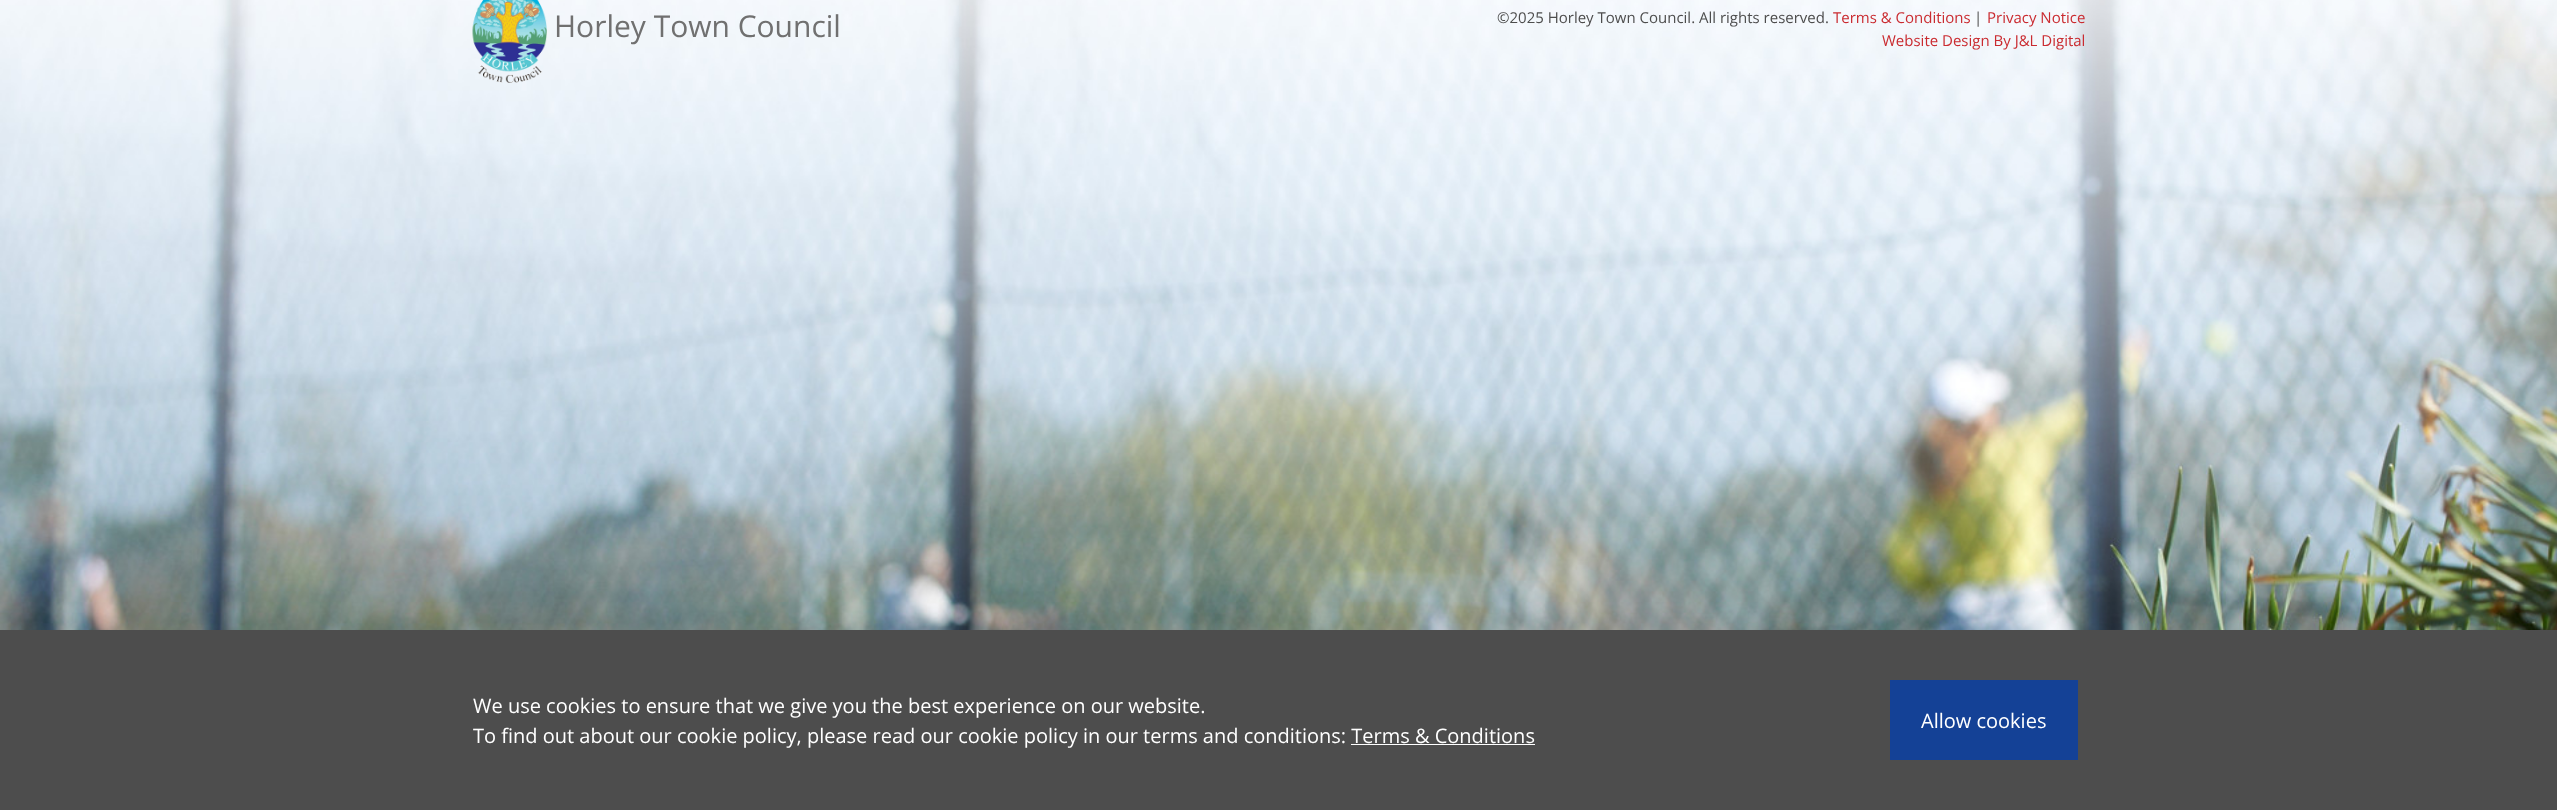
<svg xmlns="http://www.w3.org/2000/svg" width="2557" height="810">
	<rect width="100%" height="100%" fill="#FFFFFF" />
	<image x="0" y="0" width="2557" height="630" href="assets/img1.png" />
	<image x="472" y="0" width="75" height="83" href="assets/img2.png" />
	<text x="554" y="37" font-family="Open Sans" font-size="30" fill="#707070">Horley Town Council</text>
	<text x="1497" y="23" font-family="Open Sans" font-size="15" fill="#4D4D4D">©2025 Horley Town Council. All rights reserved.</text>
	<text x="1833" y="23" font-family="Open Sans" font-size="15" fill="#CA2B30">Terms &amp; Conditions</text>
	<text x="1974" y="23" font-family="Open Sans" font-size="15" fill="#4D4D4D">|</text>
	<g font-family="Open Sans" font-size="15" fill="#CA2B30">
		<text x="1987" y="23">Privacy Notice</text>
		<text x="1882" y="46">Website Design By J&amp;L Digital</text>
	</g>
	<rect x="0" y="630" width="2557" height="180" fill="#4D4D4D" />
	<g font-family="Open Sans" font-size="20" fill="#FFFFFF">
		<text x="473" y="713">We use cookies to ensure that we give you the best experience on our website.</text>
		<text x="473" y="743">To find out about our cookie policy, please read our cookie policy in our terms and conditions: Terms &amp; Conditions</text>
	</g>
	<rect x="1351" y="744" width="184" height="1" fill="#FFFFFF" />
	<rect x="1890" y="680" width="188" height="80" fill="#144196" />
	<text x="1921" y="728" font-family="Open Sans" font-size="20" fill="#FFFFFF">Allow cookies</text>
</svg>
